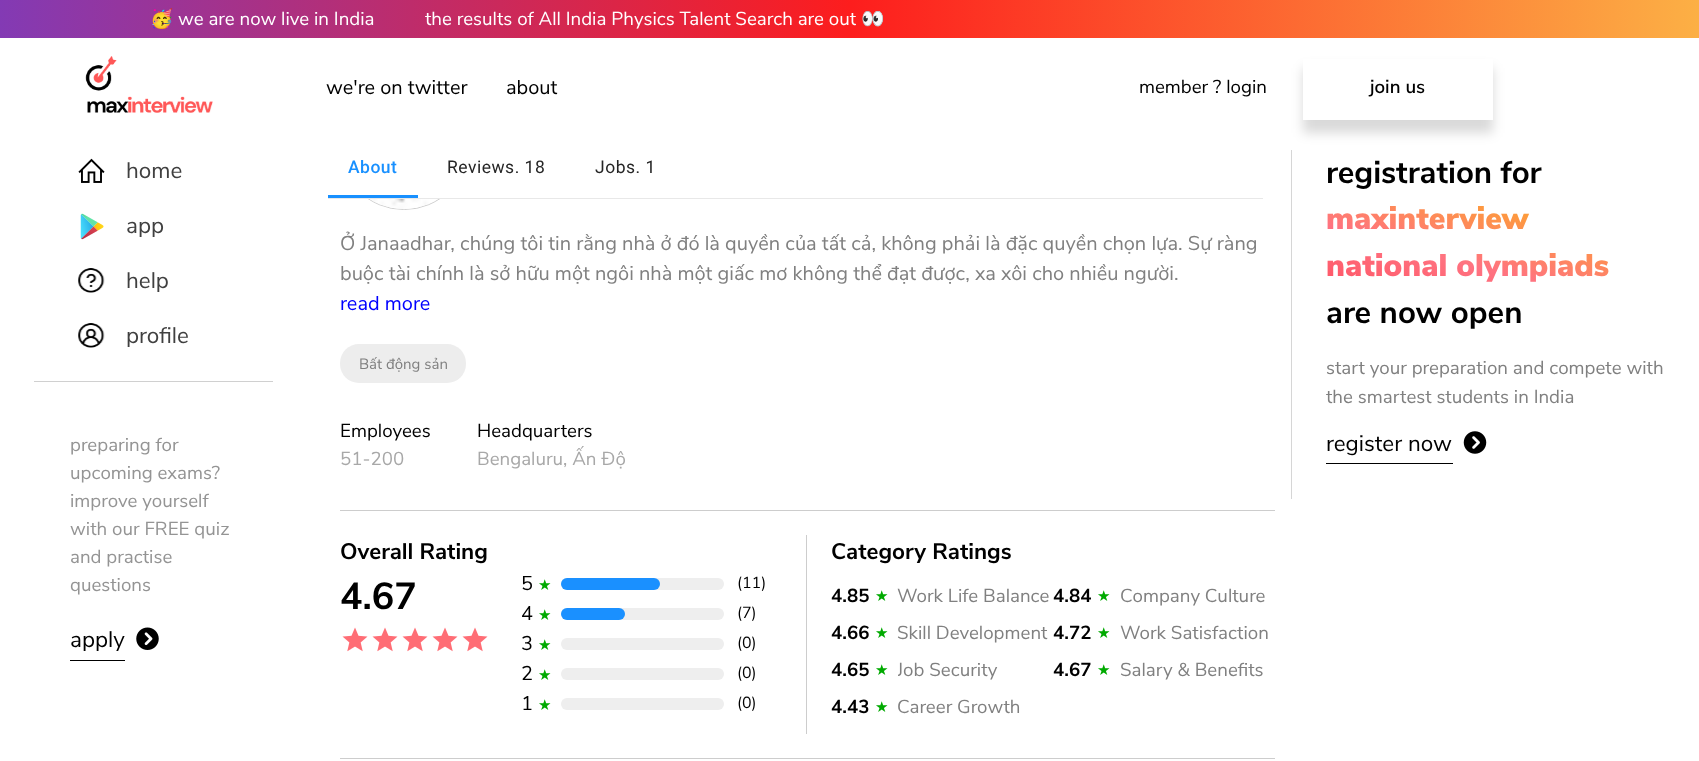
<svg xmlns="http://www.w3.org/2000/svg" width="1699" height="761">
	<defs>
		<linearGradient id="g1" gradientUnits="userSpaceOnUse" x1="0" y1="19" x2="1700" y2="19"><stop offset="0" stop-color="#833AB4" /><stop offset="0.5" stop-color="#FD1D1D" /><stop offset="1" stop-color="#FCB045" /></linearGradient>
		<clipPath id="clip1"><rect x="898" y="656" width="155" height="28" /></clipPath>
		<linearGradient id="g2" gradientUnits="userSpaceOnUse" x1="1472" y1="331" x2="1520" y2="157"><stop offset="0" stop-color="#FF5263" /><stop offset="0.35" stop-color="#FF7381" /><stop offset="1" stop-color="#FCBD01" /></linearGradient>
	</defs>
	<rect width="100%" height="100%" fill="#FFFFFF" />
	<rect x="0" y="0" width="1699" height="38" fill="url(#g1)" />
	<text x="150" y="25" font-family="Noto Color Emoji" font-size="18.75" fill="#FFFFFF">🥳</text>
	<g font-family="Nunito Sans" font-size="18.75" fill="#FFFFFF">
		<text x="178" y="25">we are now live in India</text>
		<text x="425" y="25">the results of All India Physics Talent Search are out</text>
	</g>
	<text x="861" y="25" font-family="Noto Color Emoji" font-size="18.75" fill="#FFFFFF">👀</text>
	<rect x="340.5" y="83.5" width="127" height="126" rx="63" fill="none" stroke="#CFCFCF" />
	<rect x="340" y="83" width="128" height="115" fill="#FFFFFF" />
	<image x="85" y="56" width="128" height="57" href="assets/img1.png" />
	<g font-family="Nunito Sans" font-size="20" fill="#000000">
		<text x="326" y="94">we're on twitter</text>
		<text x="506" y="94">about</text>
	</g>
	<text x="1139" y="93" font-family="Nunito Sans" font-size="18.75" fill="#000000">member ? login</text>
	<rect x="1303" y="68" width="190" height="65" fill="#000000" fill-opacity="0.15" filter="blur(6px)" />
	<rect x="1303" y="59" width="190" height="61" fill="#FFFFFF" />
	<text x="1370" y="93" font-family="Nunito Sans" font-size="18.75" font-weight="600" fill="#000000">join us</text>
	<image x="78" y="158" width="27" height="25" href="assets/img2.png" />
	<text x="126" y="178" font-family="Nunito Sans" font-size="22.5" fill="#404040">home</text>
	<image x="80" y="213" width="24" height="27" href="assets/img3.png" />
	<text x="126" y="233" font-family="Nunito Sans" font-size="22.5" fill="#404040">app</text>
	<image x="78" y="268" width="27" height="25" href="assets/img4.png" />
	<text x="126" y="288" font-family="Nunito Sans" font-size="22.5" fill="#404040">help</text>
	<image x="78" y="323" width="27" height="25" href="assets/img5.png" />
	<text x="126" y="343" font-family="Nunito Sans" font-size="22.5" fill="#404040">profile</text>
	<rect x="34" y="381" width="239" height="1" fill="#D0D0D0" />
	<g font-family="Nunito Sans" font-size="18.75" fill="#949494">
		<text x="70" y="451">preparing for</text>
		<text x="70" y="479">upcoming exams?</text>
		<text x="70" y="507">improve yourself</text>
		<text x="70" y="535">with our FREE quiz</text>
		<text x="70" y="563">and practise</text>
		<text x="70" y="591">questions</text>
	</g>
	<text x="70" y="647" font-family="Nunito Sans" font-size="22.5" fill="#000000">apply</text>
	<rect x="70" y="660" width="55" height="1" fill="#000000" />
	<image x="136" y="627" width="23" height="23" href="assets/img6.png" />
	<rect x="328" y="198" width="935" height="1" fill="#E8E8E8" />
	<text x="348" y="173" font-family="Roboto" font-size="17.5" font-weight="500" letter-spacing="0.5" fill="#1890FF">About</text>
	<g font-family="Roboto" font-size="17.5" letter-spacing="0.5" fill="#262626">
		<text x="447" y="173">Reviews. 18</text>
		<text x="595" y="173">Jobs. 1</text>
	</g>
	<rect x="328" y="195" width="90" height="3" fill="#1890FF" />
	<image x="369" y="199" width="69" height="10" href="assets/img7.png" />
	<g font-family="Nunito Sans" font-size="20" fill="#808080">
		<text x="340" y="250">Ở Janaadhar, chúng tôi tin rằng nhà ở đó là quyền của tất cả, không phải là đặc quyền chọn lựa. Sự ràng</text>
		<text x="340" y="280">buộc tài chính là sở hữu một ngôi nhà một giấc mơ không thể đạt được, xa xôi cho nhiều người.</text>
	</g>
	<text x="340" y="310" font-family="Nunito Sans" font-size="20" fill="#0000FF">read more</text>
	<rect x="340" y="344" width="126" height="39" rx="19" fill="#EDEDED" />
	<text x="359" y="369" font-family="Nunito Sans" font-size="15" fill="#808080">Bất động sản</text>
	<text x="340" y="437" font-family="Nunito Sans" font-size="18.75" fill="#000000">Employees</text>
	<text x="340" y="465" font-family="Nunito Sans" font-size="18.75" fill="#A8A8A8">51-200</text>
	<text x="477" y="437" font-family="Nunito Sans" font-size="18.75" fill="#000000">Headquarters</text>
	<text x="477" y="465" font-family="Nunito Sans" font-size="18.75" fill="#A8A8A8">Bengaluru, Ấn Độ</text>
	<rect x="340" y="510" width="935" height="1" fill="#CDCDCD" />
	<rect x="340" y="758" width="935" height="1" fill="#CDCDCD" />
	<rect x="806" y="535" width="1" height="199" fill="#CDCDCD" />
	<text x="340" y="559" font-family="Nunito Sans" font-size="22.5" font-weight="700" fill="#000000">Overall Rating</text>
	<text x="340" y="609" font-family="Nunito Sans" font-size="37.5" font-weight="700" fill="#000000">4.67</text>
	<image x="342" y="627" width="26" height="25" href="assets/img8.png" />
	<image x="372" y="627" width="26" height="25" href="assets/img8.png" />
	<image x="402" y="627" width="26" height="25" href="assets/img8.png" />
	<image x="432" y="627" width="26" height="25" href="assets/img8.png" />
	<image x="462" y="627" width="26" height="25" href="assets/img8.png" />
	<text x="521" y="590" font-family="Nunito Sans" font-size="20" fill="#000000">5</text>
	<text x="538" y="590" font-family="DejaVu Sans" font-size="15" fill="#00AA00">★</text>
	<rect x="561" y="578" width="163" height="12" rx="6" fill="#EEEEEE" />
	<rect x="561" y="578" width="99" height="12" rx="6" fill="#1A90FF" />
	<text x="737" y="588" font-family="Nunito Sans" font-size="16" fill="#000000">(11)</text>
	<text x="521" y="620" font-family="Nunito Sans" font-size="20" fill="#000000">4</text>
	<text x="538" y="620" font-family="DejaVu Sans" font-size="15" fill="#00AA00">★</text>
	<rect x="561" y="608" width="163" height="12" rx="6" fill="#EEEEEE" />
	<rect x="561" y="608" width="64" height="12" rx="6" fill="#1A90FF" />
	<text x="737" y="618" font-family="Nunito Sans" font-size="16" fill="#000000">(7)</text>
	<text x="521" y="650" font-family="Nunito Sans" font-size="20" fill="#000000">3</text>
	<text x="538" y="650" font-family="DejaVu Sans" font-size="15" fill="#00AA00">★</text>
	<rect x="561" y="638" width="163" height="12" rx="6" fill="#EEEEEE" />
	<text x="737" y="648" font-family="Nunito Sans" font-size="16" fill="#000000">(0)</text>
	<text x="521" y="680" font-family="Nunito Sans" font-size="20" fill="#000000">2</text>
	<text x="538" y="680" font-family="DejaVu Sans" font-size="15" fill="#00AA00">★</text>
	<rect x="561" y="668" width="163" height="12" rx="6" fill="#EEEEEE" />
	<text x="737" y="678" font-family="Nunito Sans" font-size="16" fill="#000000">(0)</text>
	<text x="521" y="710" font-family="Nunito Sans" font-size="20" fill="#000000">1</text>
	<text x="538" y="710" font-family="DejaVu Sans" font-size="15" fill="#00AA00">★</text>
	<rect x="561" y="698" width="163" height="12" rx="6" fill="#EEEEEE" />
	<text x="737" y="708" font-family="Nunito Sans" font-size="16" fill="#000000">(0)</text>
	<text x="831" y="559" font-family="Nunito Sans" font-size="22.5" font-weight="700" fill="#000000">Category Ratings</text>
	<text x="831" y="602" font-family="Nunito Sans" font-size="18.75" font-weight="700" fill="#000000">4.85</text>
	<text x="875" y="601" font-family="DejaVu Sans" font-size="15" fill="#00AA00">★</text>
	<text x="897" y="602" font-family="Nunito Sans" font-size="18.75" fill="#808080">Work Life Balance</text>
	<text x="1053" y="602" font-family="Nunito Sans" font-size="18.75" font-weight="700" fill="#000000">4.84</text>
	<text x="1097" y="601" font-family="DejaVu Sans" font-size="15" fill="#00AA00">★</text>
	<text x="1120" y="602" font-family="Nunito Sans" font-size="18.75" fill="#808080">Company Culture</text>
	<text x="831" y="639" font-family="Nunito Sans" font-size="18.75" font-weight="700" fill="#000000">4.66</text>
	<text x="875" y="638" font-family="DejaVu Sans" font-size="15" fill="#00AA00">★</text>
	<text x="897" y="639" font-family="Nunito Sans" font-size="18.75" fill="#808080">Skill Development</text>
	<text x="1053" y="639" font-family="Nunito Sans" font-size="18.75" font-weight="700" fill="#000000">4.72</text>
	<text x="1097" y="638" font-family="DejaVu Sans" font-size="15" fill="#00AA00">★</text>
	<text x="1120" y="639" font-family="Nunito Sans" font-size="18.75" fill="#808080">Work Satisfaction</text>
	<text x="831" y="676" font-family="Nunito Sans" font-size="18.75" font-weight="700" fill="#000000">4.65</text>
	<text x="875" y="675" font-family="DejaVu Sans" font-size="15" fill="#00AA00">★</text>
	<g clip-path="url(#clip1)">
		<text x="897" y="676" font-family="Nunito Sans" font-size="18.75" fill="#808080">Job Security</text>
	</g>
	<text x="1053" y="676" font-family="Nunito Sans" font-size="18.75" font-weight="700" fill="#000000">4.67</text>
	<text x="1097" y="675" font-family="DejaVu Sans" font-size="15" fill="#00AA00">★</text>
	<text x="1120" y="676" font-family="Nunito Sans" font-size="18.75" fill="#808080">Salary &amp; Benefits</text>
	<text x="831" y="713" font-family="Nunito Sans" font-size="18.75" font-weight="700" fill="#000000">4.43</text>
	<text x="875" y="712" font-family="DejaVu Sans" font-size="15" fill="#00AA00">★</text>
	<text x="897" y="713" font-family="Nunito Sans" font-size="18.75" fill="#808080">Career Growth</text>
	<rect x="1291" y="150" width="1" height="349" fill="#D6D6D6" />
	<text x="1326" y="183" font-family="Nunito Sans" font-size="31.25" font-weight="700" fill="#000000">registration for</text>
	<g font-family="Nunito Sans" font-size="31.25" font-weight="900" fill="url(#g2)">
		<text x="1326" y="229">maxinterview</text>
		<text x="1326" y="276">national olympiads</text>
	</g>
	<text x="1326" y="323" font-family="Nunito Sans" font-size="31.25" font-weight="700" fill="#000000">are now open</text>
	<g font-family="Nunito Sans" font-size="18.75" fill="#808080">
		<text x="1326" y="374">start your preparation and compete with</text>
		<text x="1326" y="403">the smartest students in India</text>
	</g>
	<text x="1326" y="451" font-family="Nunito Sans" font-size="22.5" fill="#000000">register now</text>
	<rect x="1326" y="463" width="127" height="1" fill="#000000" />
	<image x="1463" y="431" width="24" height="23" href="assets/img9.png" />
</svg>
